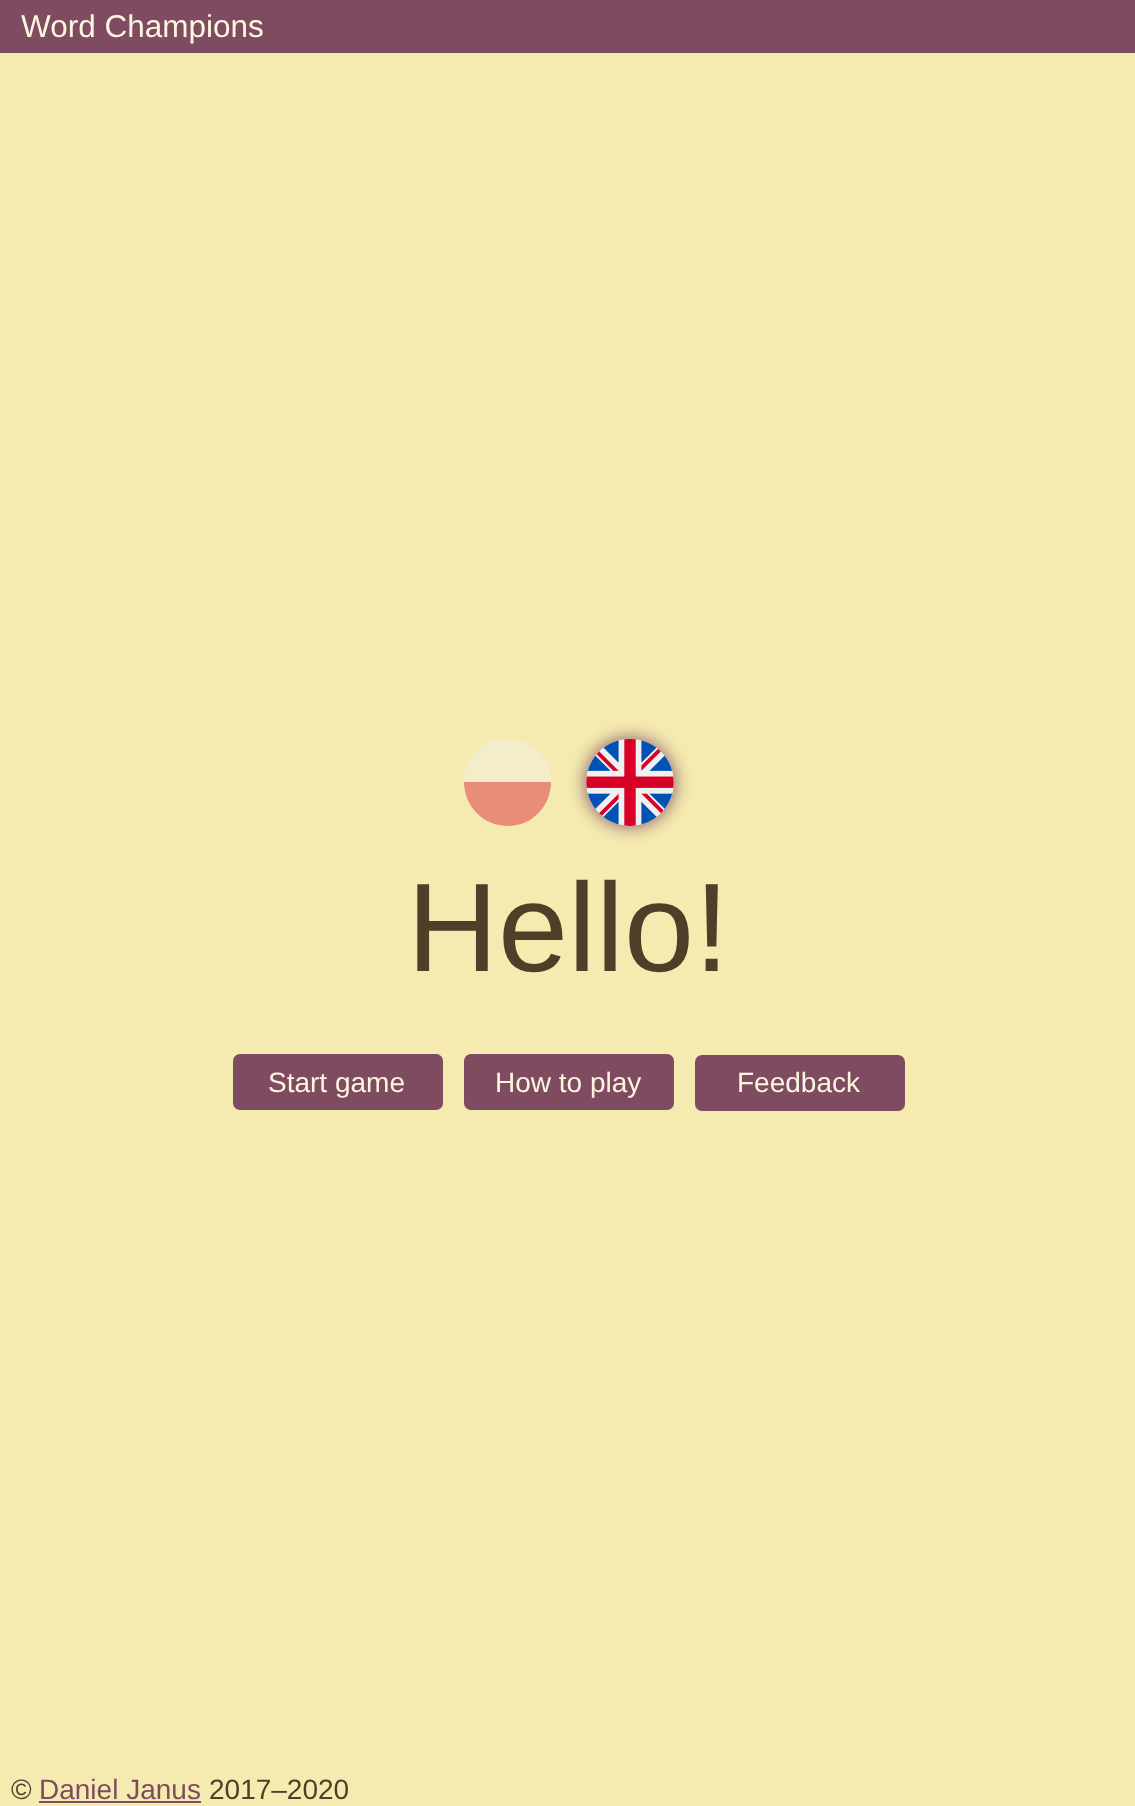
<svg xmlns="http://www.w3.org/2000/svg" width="1135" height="1806">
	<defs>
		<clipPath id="clip1"><rect x="464" y="739" width="87" height="87" /></clipPath>
	</defs>
	<rect width="100%" height="100%" fill="#7F4B61" />
	<text x="21" y="37" font-family="Liberation Sans" font-size="31.5" fill="#FBF6DD">Word Champions</text>
	<rect x="0" y="53" width="1135" height="1753" fill="#F5EBB0" />
	<g clip-path="url(#clip1)">
		<circle cx="507.5" cy="782" r="44" fill="#F3EDCA" />
	</g>
	<rect x="586" y="739" width="88" height="87" rx="43.5" fill="#7F4B61" filter="blur(9px)" />
	<path d="M551 782C551 806 532 826 508 826C483 826 464 806 464 782" fill="#E98D79" />
	<image x="586" y="739" width="88" height="87" href="assets/img1.png" />
	<text x="407" y="971" font-family="Liberation Sans" font-size="126" fill="#4C4028">Hello!</text>
	<rect x="233" y="1054" width="210" height="56" rx="7" fill="#7F4B61" />
	<text x="268" y="1092" font-family="Liberation Sans" font-size="28" fill="#FBF6DD">Start game</text>
	<rect x="464" y="1054" width="210" height="56" rx="7" fill="#7F4B61" />
	<text x="495" y="1092" font-family="Liberation Sans" font-size="28" fill="#FBF6DD">How to play</text>
	<rect x="695" y="1055" width="210" height="56" rx="7" fill="#7F4B61" />
	<text x="737" y="1092" font-family="Liberation Sans" font-size="28" fill="#FBF6DD">Feedback</text>
	<text x="11" y="1799" font-family="Liberation Sans" font-size="28" fill="#4C4028">©</text>
	<text x="39" y="1799" font-family="Liberation Sans" font-size="28" fill="#7F4B61">Daniel Janus</text>
	<rect x="39" y="1801" width="162" height="2" fill="#7F4B61" />
	<text x="209" y="1799" font-family="Liberation Sans" font-size="28" fill="#4C4028">2017–2020</text>
</svg>
